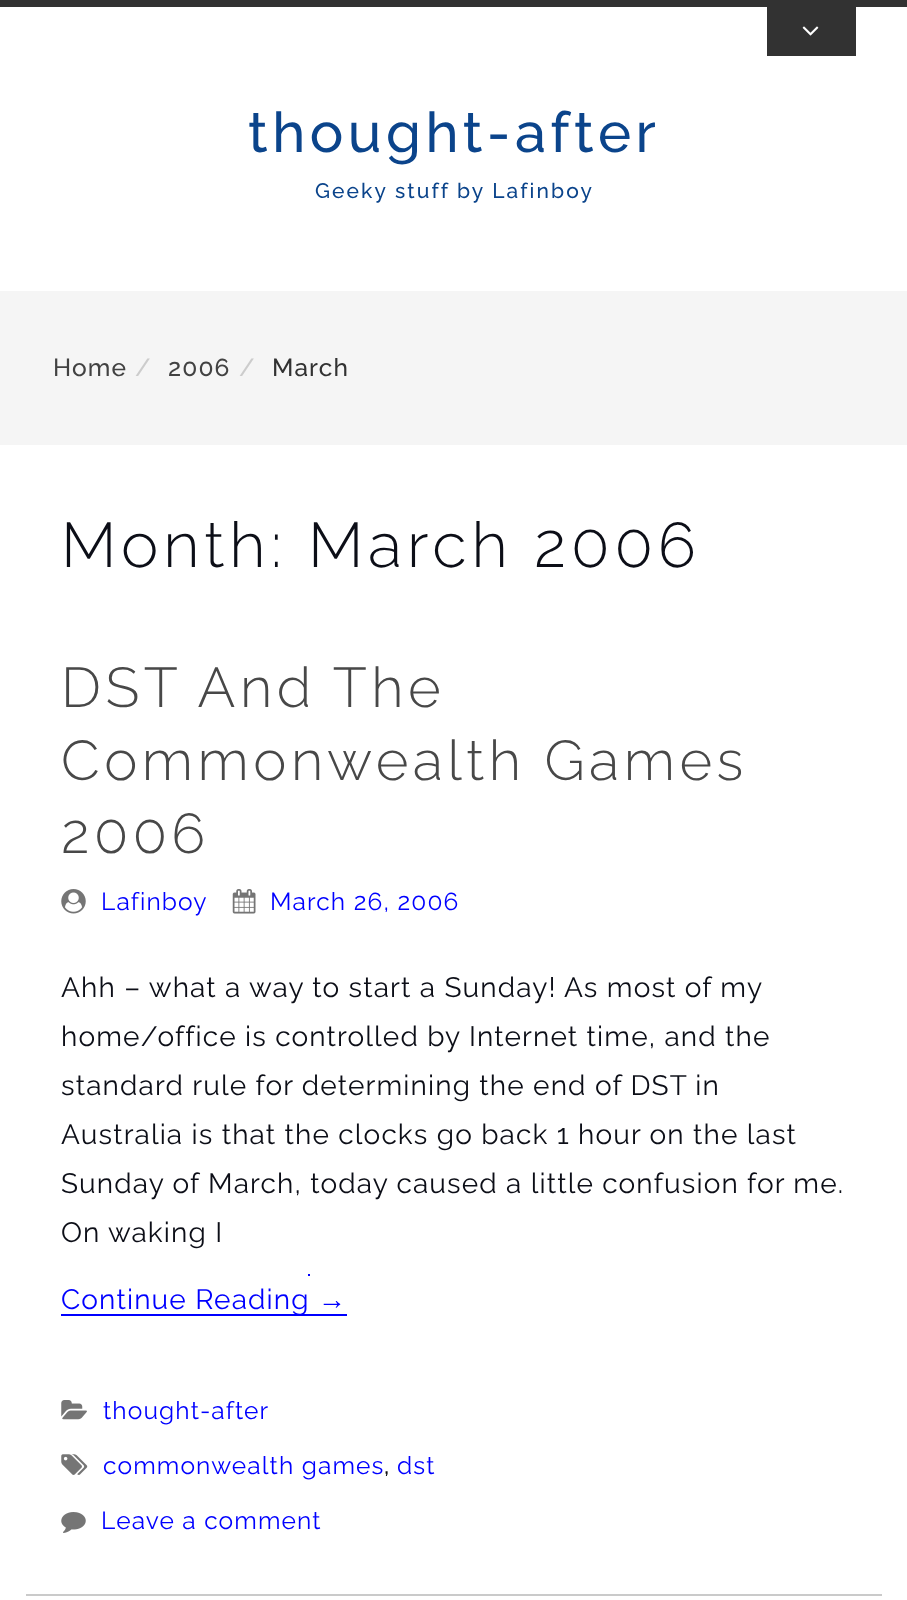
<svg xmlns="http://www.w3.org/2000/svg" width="907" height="1600">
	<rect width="100%" height="100%" fill="#FFFFFF" />
	<rect x="0" y="0" width="907" height="7" fill="#323232" />
	<rect x="767" y="7" width="89" height="49" fill="#323232" />
	<image x="802" y="26" width="17" height="10" href="assets/img1.png" />
	<text x="248" y="152" font-family="Raleway" font-size="56" font-weight="500" letter-spacing="4.5" fill="#0B448B">thought-after</text>
	<text x="315" y="198" font-family="Raleway" font-size="21" font-weight="500" letter-spacing="2.1" fill="#0B448B">Geeky stuff by Lafinboy</text>
	<rect x="0" y="291" width="907" height="154" fill="#F5F5F5" />
	<text x="53" y="376" font-family="Raleway" font-size="24.5" font-weight="500" letter-spacing="1.12" fill="#424242">Home</text>
	<text x="135" y="376" font-family="Raleway" font-size="24.5" font-weight="500" letter-spacing="1.12" fill="#CCCCCC">/</text>
	<text x="168" y="376" font-family="Raleway" font-size="24.5" font-weight="500" letter-spacing="1.12" fill="#424242">2006</text>
	<text x="239" y="376" font-family="Raleway" font-size="24.5" font-weight="500" letter-spacing="1.12" fill="#CCCCCC">/</text>
	<text x="272" y="376" font-family="Raleway" font-size="24.5" font-weight="500" letter-spacing="1.12" fill="#323232">March</text>
	<text x="61" y="567" font-family="Raleway" font-size="63" font-weight="300" letter-spacing="5" fill="#0C0E17">Month: March 2006</text>
	<rect x="26" y="1594" width="856" height="2" fill="#CACACA" />
	<g font-family="Raleway" font-size="56" font-weight="300" letter-spacing="4.5" fill="#484848">
		<text x="61" y="707">DST And The</text>
		<text x="61" y="780">Commonwealth Games</text>
		<text x="61" y="853">2006</text>
	</g>
	<image x="61" y="889" width="25" height="25" href="assets/img2.png" />
	<text x="101" y="910" font-family="Raleway" font-size="24.5" letter-spacing="1.12" fill="#0000FF">Lafinboy</text>
	<image x="232" y="889" width="24" height="25" href="assets/img3.png" />
	<text x="270" y="910" font-family="Raleway" font-size="24.5" letter-spacing="1.12" fill="#0000FF">March 26, 2006</text>
	<g font-family="Raleway" font-size="28" letter-spacing="1.12" fill="#0C0E17">
		<text x="61" y="997">Ahh – what a way to start a Sunday! As most of my</text>
		<text x="61" y="1046">home/office is controlled by Internet time, and the</text>
		<text x="61" y="1095">standard rule for determining the end of DST in</text>
		<text x="61" y="1144">Australia is that the clocks go back 1 hour on the last</text>
		<text x="61" y="1193">Sunday of March, today caused a little confusion for me.</text>
		<text x="61" y="1242">On waking I</text>
	</g>
	<rect x="61" y="1314" width="286" height="2" fill="#0000FF" />
	<text x="61" y="1309" font-family="Raleway" font-size="28" letter-spacing="1.12" fill="#0000FF">Continue Reading</text>
	<rect x="308" y="1274" width="2" height="2" fill="#0000FF" />
	<text x="318" y="1309" font-family="Liberation Sans" font-size="28" letter-spacing="1.12" fill="#0000FF">→</text>
	<image x="61" y="1400" width="26" height="20" href="assets/img4.png" />
	<text x="103" y="1419" font-family="Raleway" font-size="24.5" letter-spacing="1.12" fill="#0000FF">thought-after</text>
	<image x="61" y="1454" width="27" height="21" href="assets/img5.png" />
	<text x="103" y="1474" font-family="Raleway" font-size="24.5" letter-spacing="1.12" fill="#0000FF">commonwealth games</text>
	<text x="384" y="1474" font-family="Raleway" font-size="24.5" font-weight="500" letter-spacing="1.12" fill="#0A0A0A">,</text>
	<text x="397" y="1474" font-family="Raleway" font-size="24.5" letter-spacing="1.12" fill="#0000FF">dst</text>
	<image x="61" y="1512" width="25" height="21" href="assets/img6.png" />
	<text x="101" y="1529" font-family="Raleway" font-size="24.5" letter-spacing="1.12" fill="#0000FF">Leave a comment</text>
</svg>
